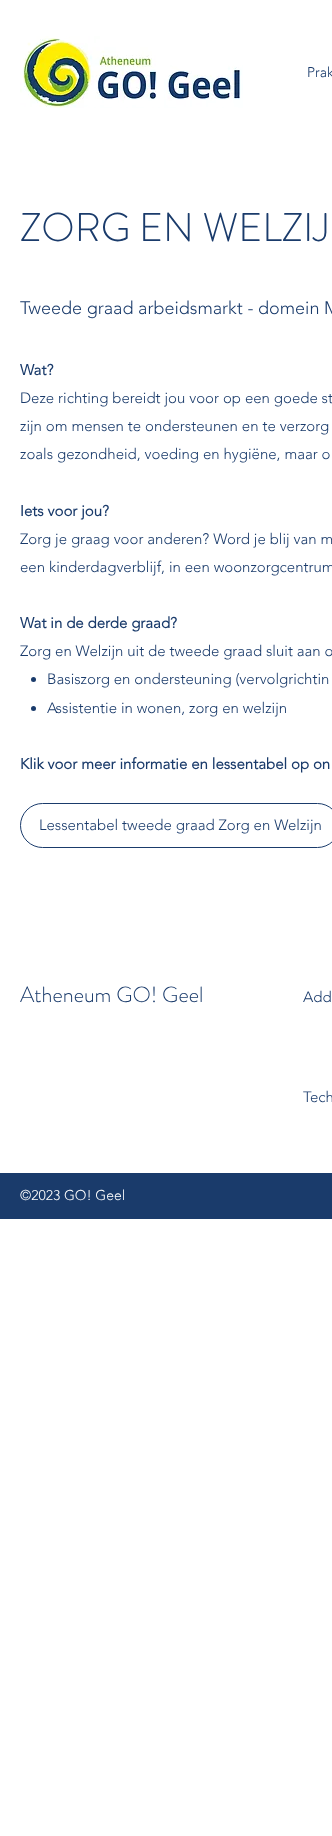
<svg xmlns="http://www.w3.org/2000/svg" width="332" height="1836">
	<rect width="100%" height="100%" fill="#FFFFFF" />
	<image x="20" y="36" width="223" height="72" href="assets/img1.png" />
	<text x="307" y="77" font-family="'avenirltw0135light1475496'" font-size="14" font-weight="300" fill="#1A3B6B">Prak</text>
	<text x="20" y="241" font-family="'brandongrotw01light'" font-size="40" font-weight="300" fill="#1A3B6B">ZORG EN WELZIJ</text>
	<text x="20" y="314" font-family="'avenirltw0135light1475496'" font-size="18" font-weight="300" fill="#1A3B6B">Tweede graad arbeidsmarkt - domein M</text>
	<text x="20" y="375" font-family="'avenirltw0135light1475496'" font-size="15" font-weight="700" fill="#1A3B6B">Wat?</text>
	<g font-family="'avenirltw0135light1475496'" font-size="15" font-weight="300" fill="#1A3B6B">
		<text x="20" y="403">Deze richting bereidt jou voor op een goede st</text>
		<text x="20" y="431">zijn om mensen te ondersteunen en te verzorg</text>
		<text x="20" y="459">zoals gezondheid, voeding en hygiëne, maar o</text>
	</g>
	<text x="20" y="516" font-family="'avenirltw0135light1475496'" font-size="15" font-weight="700" fill="#1A3B6B">Iets voor jou?</text>
	<g font-family="'avenirltw0135light1475496'" font-size="15" font-weight="300" fill="#1A3B6B">
		<text x="20" y="544">Zorg je graag voor anderen? Word je blij van m</text>
		<text x="20" y="572">een kinderdagverblijf, in een woonzorgcentrum</text>
	</g>
	<text x="20" y="628" font-family="'avenirltw0135light1475496'" font-size="15" font-weight="700" fill="#1A3B6B">Wat in de derde graad?</text>
	<text x="20" y="656" font-family="'avenirltw0135light1475496'" font-size="15" font-weight="300" fill="#1A3B6B">Zorg en Welzijn uit de tweede graad sluit aan o</text>
	<circle cx="33.5" cy="679.5" r="2.5" fill="#1A3B6B" />
	<text x="47" y="684" font-family="'avenirltw0135light1475496'" font-size="15" font-weight="300" fill="#1A3B6B">Basiszorg en ondersteuning (vervolgrichtin</text>
	<circle cx="33.5" cy="708.5" r="2.5" fill="#1A3B6B" />
	<text x="47" y="713" font-family="'avenirltw0135light1475496'" font-size="15" font-weight="300" fill="#1A3B6B">Assistentie in wonen, zorg en welzijn</text>
	<text x="20" y="769" font-family="'avenirltw0135light1475496'" font-size="15" font-weight="700" fill="#1A3B6B">Klik voor meer informatie en lessentabel op on</text>
	<rect x="20.5" y="803.5" width="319" height="44" rx="22" fill="none" stroke="#1A3B6B" />
	<text x="39" y="830" font-family="'avenirltw0135light1475496'" font-size="15" font-weight="300" fill="#1A3B6B">Lessentabel tweede graad Zorg en Welzijn</text>
	<text x="20" y="1002" font-family="'brandongrotw01light'" font-size="22" font-weight="300" fill="#1A3B6B">Atheneum GO! Geel</text>
	<g font-family="'avenirltw0135light1475496'" font-size="15" font-weight="300" fill="#1A3B6B">
		<text x="303" y="1002">Add</text>
		<text x="303" y="1102">Tech</text>
	</g>
	<rect x="0" y="1173" width="332" height="46" fill="#1A3B6B" />
	<text x="20" y="1200" font-family="'avenirltw0135light1475496'" font-size="14" font-weight="300" fill="#FFFFFF">©2023 GO! Geel</text>
</svg>
